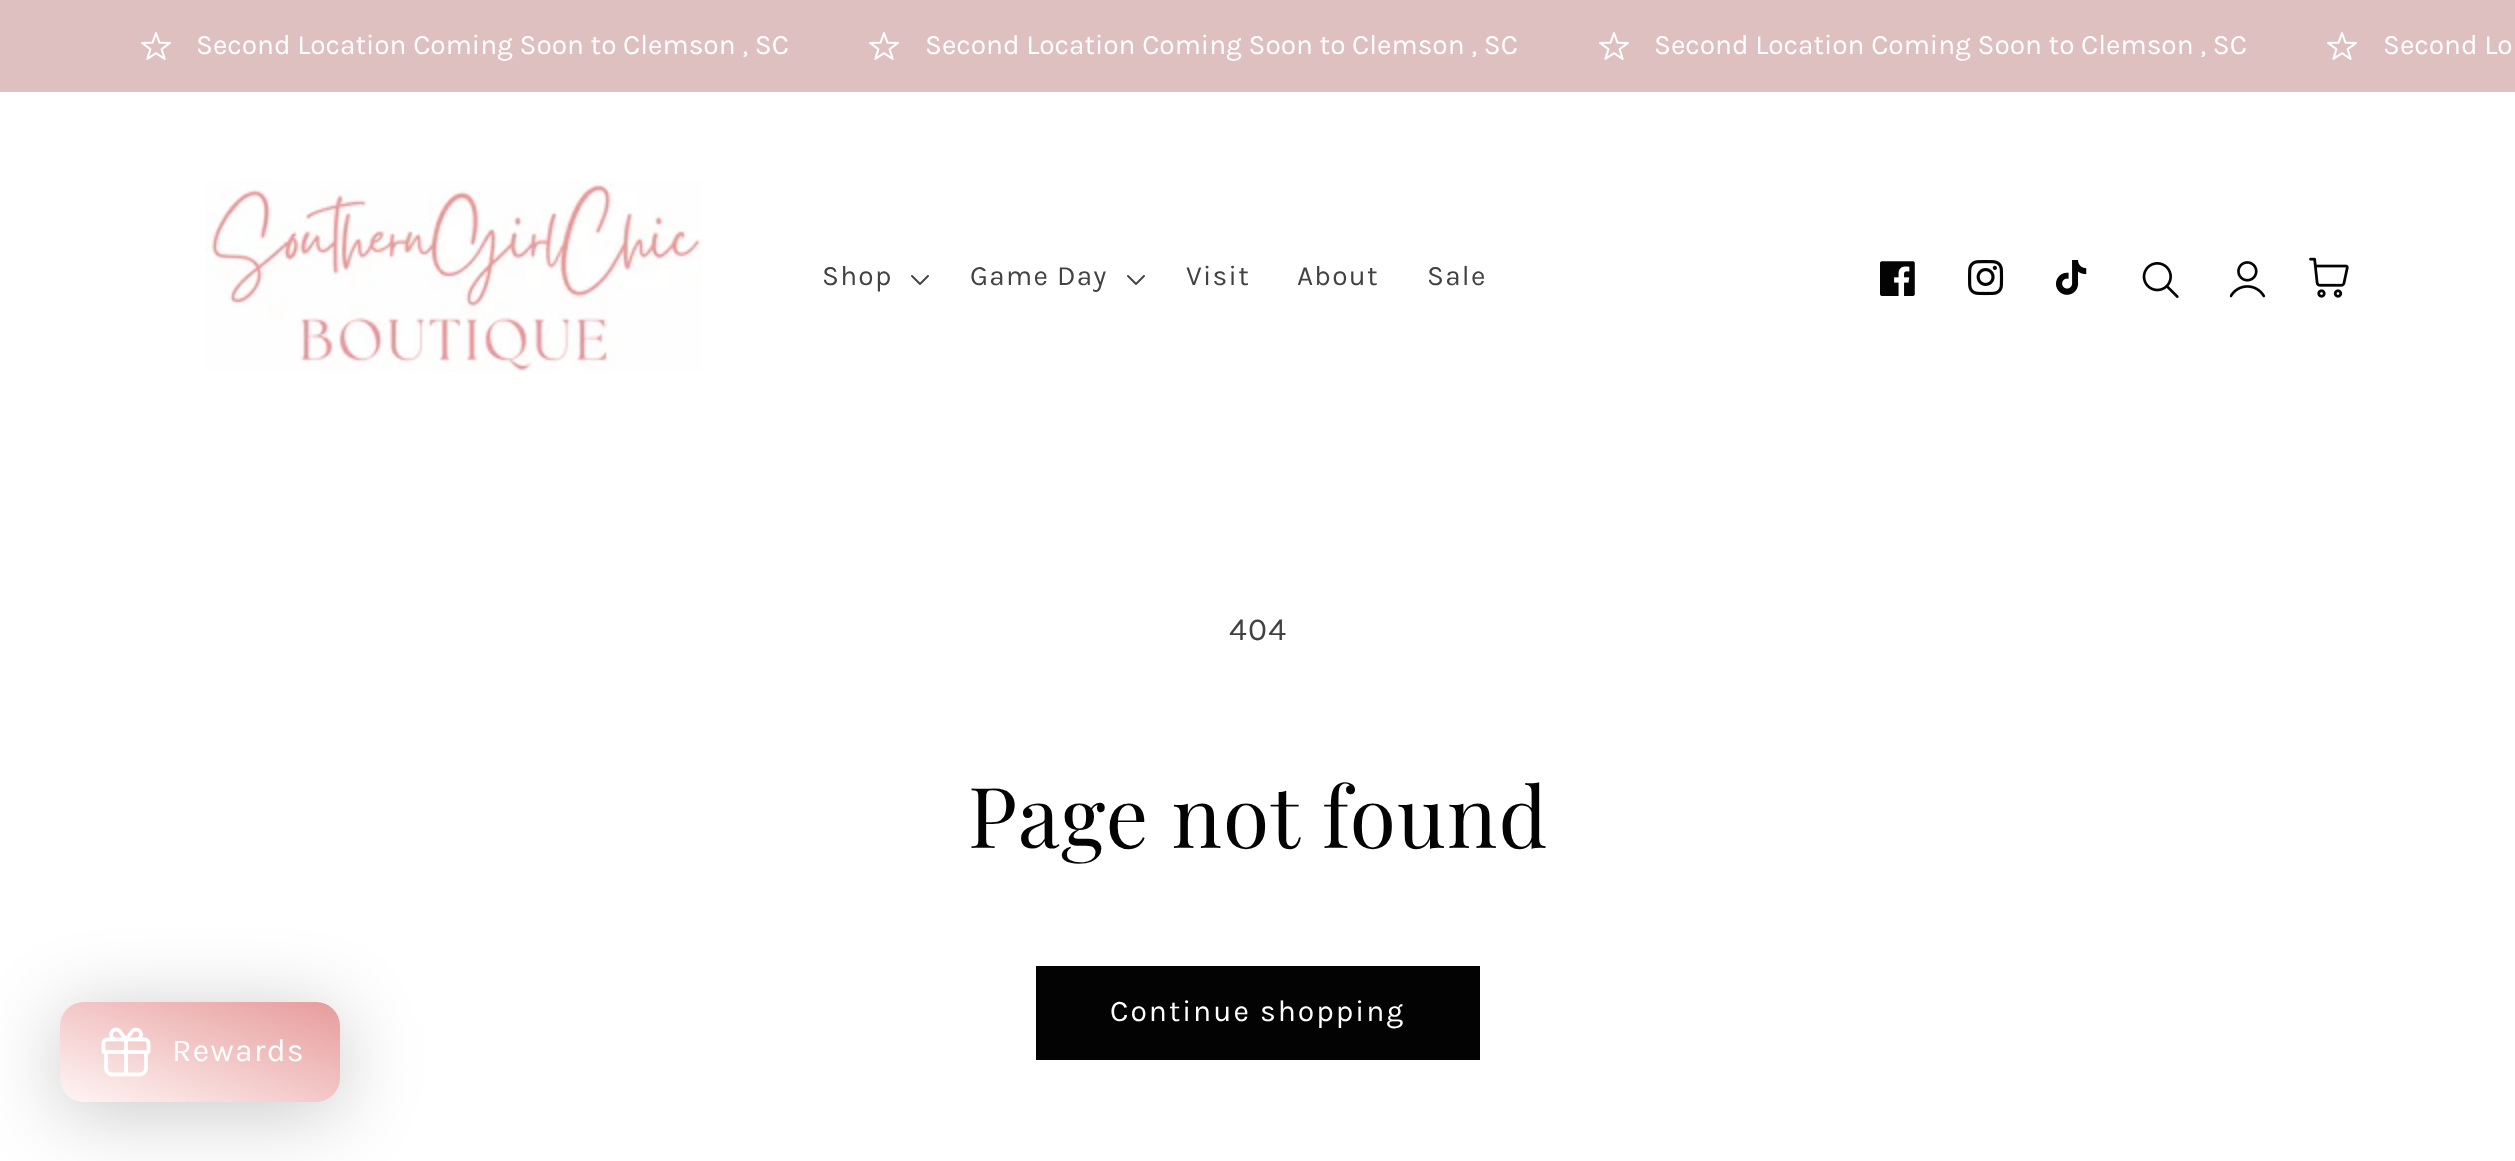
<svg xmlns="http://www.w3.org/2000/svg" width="2515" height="1161">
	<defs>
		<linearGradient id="g1" gradientUnits="userSpaceOnUse" x1="232" y1="963" x2="168" y2="1141"><stop offset="0" stop-color="#E79B9B" /><stop offset="1" stop-color="#FFF5F5" /></linearGradient>
	</defs>
	<rect width="100%" height="100%" fill="#FFFFFF" />
	<rect x="0" y="0" width="2515" height="92" fill="#DEC0C0" />
	<image x="141" y="32" width="30" height="28" href="assets/img1.png" />
	<text x="196" y="54" font-family="Karla" font-size="28" fill="#FFFFFF">Second Location Coming Soon to Clemson , SC</text>
	<image x="869" y="32" width="30" height="28" href="assets/img1.png" />
	<text x="925" y="54" font-family="Karla" font-size="28" fill="#FFFFFF">Second Location Coming Soon to Clemson , SC</text>
	<image x="1599" y="32" width="30" height="28" href="assets/img1.png" />
	<text x="1654" y="54" font-family="Karla" font-size="28" fill="#FFFFFF">Second Location Coming Soon to Clemson , SC</text>
	<image x="2327" y="32" width="30" height="28" href="assets/img1.png" />
	<text x="2383" y="54" font-family="Karla" font-size="28" fill="#FFFFFF">Second Lo</text>
	<image x="205" y="180" width="497" height="192" href="assets/img2.png" />
	<text x="822" y="285" font-family="Karla" font-size="28" letter-spacing="1.25" fill="#424242">Shop</text>
	<image x="911" y="275" width="18" height="10" href="assets/img3.png" />
	<text x="970" y="285" font-family="Karla" font-size="28" letter-spacing="1.25" fill="#424242">Game Day</text>
	<image x="1127" y="275" width="18" height="10" href="assets/img3.png" />
	<g font-family="Karla" font-size="28" letter-spacing="1.25" fill="#424242">
		<text x="1186" y="285">Visit</text>
		<text x="1297" y="285">About</text>
		<text x="1427" y="285">Sale</text>
	</g>
	<image x="1880" y="261" width="35" height="35" href="assets/img4.png" />
	<image x="1968" y="260" width="36" height="36" href="assets/img5.png" />
	<image x="2056" y="260" width="31" height="35" href="assets/img6.png" />
	<image x="2142" y="262" width="37" height="36" href="assets/img7.png" />
	<image x="2230" y="261" width="36" height="37" href="assets/img8.png" />
	<image x="2309" y="257" width="40" height="41" href="assets/img9.png" />
	<text x="1229" y="640" font-family="Karla" font-size="32" letter-spacing="1.25" fill="#424242">404</text>
	<text x="968" y="848" font-family="Playfair Display" font-size="84" letter-spacing="1.25" fill="#030303">Page not found</text>
	<rect x="1037" y="967" width="442" height="92" fill="none" stroke="#030303" stroke-width="2" />
	<rect x="1038" y="968" width="440" height="90" fill="#030303" />
	<text x="1110" y="1021" font-family="Karla" font-size="30" letter-spacing="2" fill="#FFFFFF">Continue shopping</text>
	<rect x="60" y="1012" width="280" height="100" rx="24" fill="#000000" fill-opacity="0.22" filter="blur(40px)" />
	<rect x="60" y="1002" width="280" height="100" rx="24" fill="url(#g1)" />
	<image x="101" y="1027" width="50" height="50" href="assets/img10.png" />
	<text x="172" y="1061" font-family="Karla" font-size="32" letter-spacing="1.25" fill="#FFFFFF">Rewards</text>
</svg>
